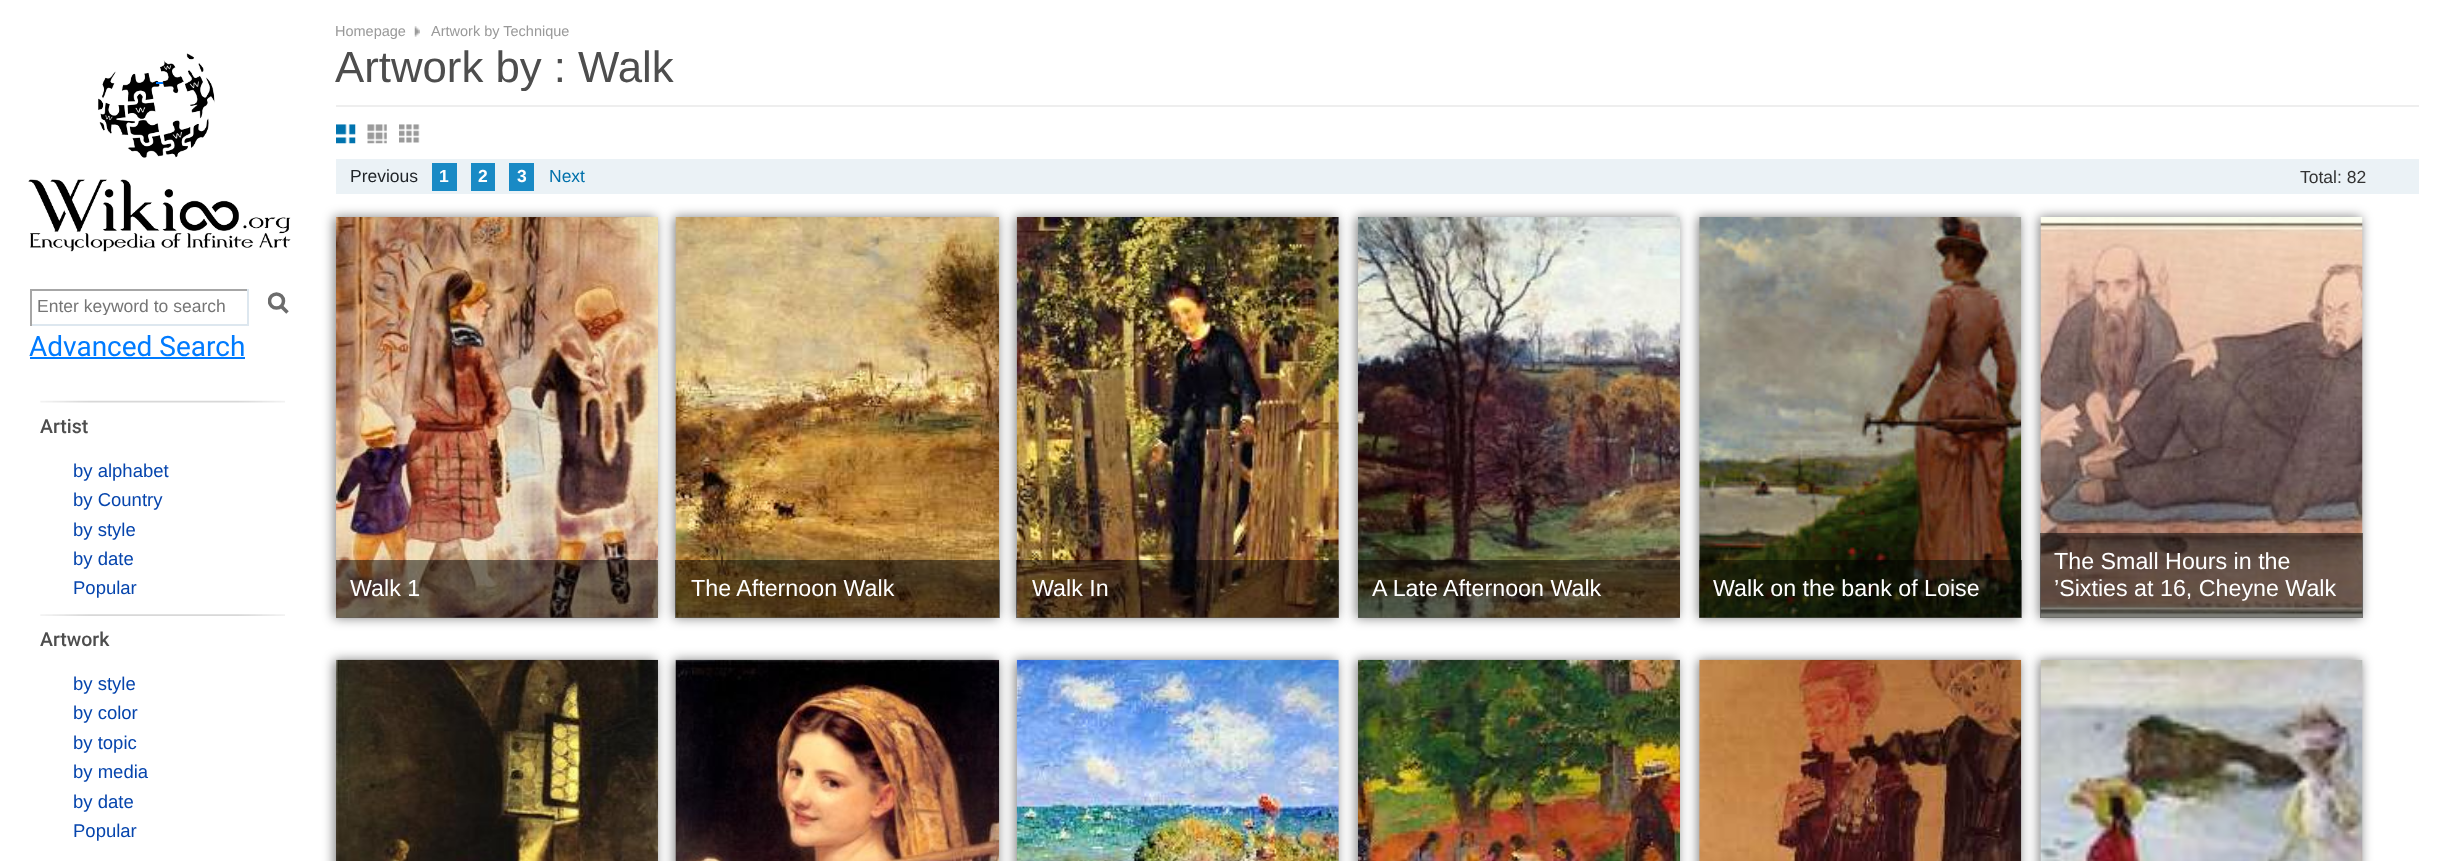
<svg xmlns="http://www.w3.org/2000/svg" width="2447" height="861">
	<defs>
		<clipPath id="clip1"><rect x="37" y="296" width="203" height="19" /></clipPath>
		<clipPath id="clip2"><rect x="268" y="292" width="21" height="23" /></clipPath>
	</defs>
	<rect width="100%" height="100%" fill="#FFFFFF" />
	<image x="28" y="53" width="263" height="199" href="assets/img1.png" />
	<rect x="156" y="82" width="7" height="2" fill="#007BFF" />
	<rect x="30" y="289" width="219" height="2" fill="#A6A6A6" />
	<rect x="247" y="289" width="2" height="37" fill="#DDE7EF" />
	<rect x="30" y="324" width="219" height="2" fill="#DDE7EF" />
	<rect x="30" y="289" width="2" height="37" fill="#A6A6A6" />
	<g clip-path="url(#clip1)">
		<text x="37" y="312" font-family="Liberation Sans" font-size="17.5" fill="#757575">Enter keyword to search</text>
	</g>
	<path d="M287.5 312.5L280.5 305.5" fill="none" stroke="#6C6C6C" stroke-width="3.5" />
	<g clip-path="url(#clip2)">
		<circle cx="276.5" cy="301" r="7" fill="none" stroke="#6C6C6C" stroke-width="3.5" />
	</g>
	<text x="29" y="356" font-family="Roboto" font-size="28" fill="#007BFF">Advanced Search</text>
	<rect x="30" y="357" width="215" height="2" fill="#007BFF" />
	<image x="40" y="400" width="245" height="3" href="assets/img2.png" />
	<text x="40" y="433" font-family="Roboto" font-size="19.5" font-weight="500" fill="#4D4D4D">Artist</text>
	<g font-family="Liberation Sans" font-size="18.5" fill="#0645AD">
		<text x="73" y="477">by alphabet</text>
		<text x="73" y="506">by Country</text>
		<text x="73" y="536">by style</text>
		<text x="73" y="565">by date</text>
		<text x="73" y="594">Popular</text>
	</g>
	<image x="40" y="614" width="245" height="2" href="assets/img3.png" />
	<text x="40" y="646" font-family="Roboto" font-size="19.5" font-weight="500" fill="#4D4D4D">Artwork</text>
	<g font-family="Liberation Sans" font-size="18.5" fill="#0645AD">
		<text x="73" y="690">by style</text>
		<text x="73" y="719">by color</text>
		<text x="73" y="749">by topic</text>
		<text x="73" y="778">by media</text>
		<text x="73" y="808">by date</text>
		<text x="73" y="837">Popular</text>
	</g>
	<text x="335" y="36" font-family="Liberation Sans" font-size="14.5" fill="#999999">Homepage</text>
	<image x="414" y="26" width="6" height="11" href="assets/img4.png" />
	<text x="431" y="36" font-family="Liberation Sans" font-size="14.5" fill="#999999">Artwork by Technique</text>
	<text x="335" y="82" font-family="Liberation Sans" font-size="43.75" fill="#4D4D4D">Artwork by : Walk</text>
	<rect x="336" y="105" width="2083" height="2" fill="#EEEEEE" />
	<image x="336" y="124" width="20" height="20" href="assets/img5.png" />
	<image x="367" y="124" width="20" height="20" href="assets/img6.png" />
	<image x="399" y="124" width="21" height="19" href="assets/img7.png" />
	<rect x="336" y="159" width="2083" height="35" fill="#EBF2F6" />
	<text x="350" y="182" font-family="Liberation Sans" font-size="17.5" fill="#212529">Previous</text>
	<rect x="432" y="163" width="25" height="28" fill="#198AC5" />
	<text x="439" y="182" font-family="Liberation Sans" font-size="17.5" font-weight="700" fill="#FFFFFF">1</text>
	<rect x="471" y="163" width="24" height="28" fill="#198AC5" />
	<text x="478" y="182" font-family="Liberation Sans" font-size="17.5" font-weight="700" fill="#FFFFFF">2</text>
	<rect x="509" y="163" width="25" height="28" fill="#198AC5" />
	<text x="517" y="182" font-family="Liberation Sans" font-size="17.5" font-weight="700" fill="#FFFFFF">3</text>
	<text x="549" y="182" font-family="Liberation Sans" font-size="17.5" fill="#0071AB">Next</text>
	<text x="2300" y="183" font-family="Liberation Sans" font-size="17.5" fill="#333333">Total: 82</text>
	<rect x="334" y="217" width="322" height="401" fill="#000000" fill-opacity="0.5" filter="blur(6px)" />
	<rect x="674" y="217" width="324" height="401" fill="#000000" fill-opacity="0.5" filter="blur(6px)" />
	<image x="336" y="217" width="322" height="401" href="assets/img8.png" />
	<rect x="336" y="560" width="322" height="58" fill="#000000" fill-opacity="0.5" />
	<text x="350" y="596" font-family="Liberation Sans" font-size="23.25" fill="#FFFFFF">Walk 1</text>
	<rect x="1015" y="217" width="322" height="401" fill="#000000" fill-opacity="0.5" filter="blur(6px)" />
	<image x="675" y="217" width="325" height="401" href="assets/img9.png" />
	<rect x="675" y="560" width="325" height="58" fill="#000000" fill-opacity="0.5" />
	<text x="691" y="596" font-family="Liberation Sans" font-size="23.25" fill="#FFFFFF">The Afternoon Walk</text>
	<rect x="1356" y="217" width="322" height="401" fill="#000000" fill-opacity="0.5" filter="blur(6px)" />
	<image x="1016" y="217" width="323" height="401" href="assets/img10.png" />
	<rect x="1016" y="560" width="323" height="58" fill="#000000" fill-opacity="0.5" />
	<text x="1032" y="596" font-family="Liberation Sans" font-size="23.25" fill="#FFFFFF">Walk In</text>
	<rect x="1698" y="217" width="322" height="401" fill="#000000" fill-opacity="0.5" filter="blur(6px)" />
	<image x="1358" y="217" width="322" height="401" href="assets/img11.png" />
	<rect x="1358" y="560" width="322" height="58" fill="#000000" fill-opacity="0.5" />
	<text x="1372" y="596" font-family="Liberation Sans" font-size="23.25" fill="#FFFFFF">A Late Afternoon Walk</text>
	<rect x="2039" y="217" width="322" height="401" fill="#000000" fill-opacity="0.5" filter="blur(6px)" />
	<image x="1699" y="217" width="323" height="401" href="assets/img12.png" />
	<rect x="1699" y="560" width="323" height="58" fill="#000000" fill-opacity="0.5" />
	<text x="1713" y="596" font-family="Liberation Sans" font-size="23.25" fill="#FFFFFF">Walk on the bank of Loise</text>
	<image x="2040" y="217" width="323" height="401" href="assets/img13.png" />
	<rect x="2040" y="533" width="323" height="85" fill="#000000" fill-opacity="0.5" />
	<g font-family="Liberation Sans" font-size="23.25" fill="#FFFFFF">
		<text x="2054" y="569">The Small Hours in the</text>
		<text x="2054" y="596">’Sixties at 16, Cheyne Walk</text>
	</g>
	<rect x="334" y="660" width="322" height="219" fill="#000000" fill-opacity="0.5" filter="blur(6px)" />
	<rect x="674" y="660" width="324" height="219" fill="#000000" fill-opacity="0.5" filter="blur(6px)" />
	<image x="336" y="659" width="322" height="202" href="assets/img14.png" />
	<rect x="1015" y="660" width="322" height="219" fill="#000000" fill-opacity="0.5" filter="blur(6px)" />
	<image x="675" y="659" width="325" height="202" href="assets/img15.png" />
	<rect x="1356" y="660" width="322" height="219" fill="#000000" fill-opacity="0.5" filter="blur(6px)" />
	<image x="1016" y="659" width="323" height="202" href="assets/img16.png" />
	<rect x="1698" y="660" width="322" height="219" fill="#000000" fill-opacity="0.5" filter="blur(6px)" />
	<image x="1358" y="659" width="322" height="202" href="assets/img17.png" />
	<rect x="2039" y="660" width="322" height="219" fill="#000000" fill-opacity="0.5" filter="blur(6px)" />
	<image x="1699" y="659" width="323" height="202" href="assets/img18.png" />
	<image x="2040" y="660" width="323" height="201" href="assets/img19.png" />
</svg>
